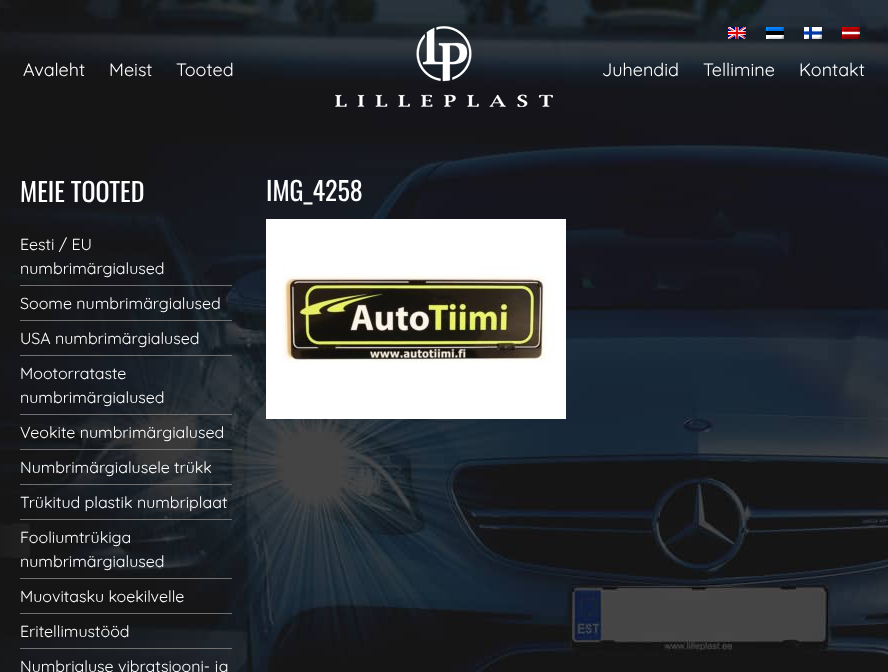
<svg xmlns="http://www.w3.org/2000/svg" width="888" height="672">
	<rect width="100%" height="100%" fill="#FFFFFF" />
	<image x="0" y="0" width="888" height="672" href="assets/img1.png" />
	<image x="728" y="27" width="18" height="12" href="assets/img2.png" />
	<image x="766" y="27" width="18" height="12" href="assets/img3.png" />
	<image x="804" y="27" width="18" height="12" href="assets/img4.png" />
	<image x="842" y="27" width="18" height="12" href="assets/img5.png" />
	<g font-family="Quicksand" font-size="18" fill="#FFFFFF">
		<text x="23" y="76">Avaleht</text>
		<text x="109" y="76">Meist</text>
		<text x="176" y="76">Tooted</text>
	</g>
	<image x="335" y="26" width="218" height="81" href="assets/img6.png" />
	<g font-family="Quicksand" font-size="18" fill="#FFFFFF">
		<text x="602" y="76">Juhendid</text>
		<text x="703" y="76">Tellimine</text>
		<text x="799" y="76">Kontakt</text>
	</g>
	<text x="20" y="202" font-family="Oswald" font-size="26" fill="#FFFFFF">MEIE TOOTED</text>
	<rect x="20" y="285" width="212" height="1" fill="#707070" />
	<g font-family="Quicksand" font-size="16" fill="#FFFFFF">
		<text x="20" y="250">Eesti / EU</text>
		<text x="20" y="274">numbrimärgialused</text>
	</g>
	<rect x="20" y="320" width="212" height="1" fill="#707070" />
	<text x="20" y="309" font-family="Quicksand" font-size="16" fill="#FFFFFF">Soome numbrimärgialused</text>
	<rect x="20" y="355" width="212" height="1" fill="#707070" />
	<text x="20" y="344" font-family="Quicksand" font-size="16" fill="#FFFFFF">USA numbrimärgialused</text>
	<rect x="20" y="414" width="212" height="1" fill="#707070" />
	<g font-family="Quicksand" font-size="16" fill="#FFFFFF">
		<text x="20" y="379">Mootorrataste</text>
		<text x="20" y="403">numbrimärgialused</text>
	</g>
	<rect x="20" y="449" width="212" height="1" fill="#707070" />
	<text x="20" y="438" font-family="Quicksand" font-size="16" fill="#FFFFFF">Veokite numbrimärgialused</text>
	<rect x="20" y="484" width="212" height="1" fill="#707070" />
	<text x="20" y="473" font-family="Quicksand" font-size="16" fill="#FFFFFF">Numbrimärgialusele trükk</text>
	<rect x="20" y="519" width="212" height="1" fill="#707070" />
	<text x="20" y="508" font-family="Quicksand" font-size="16" fill="#FFFFFF">Trükitud plastik numbriplaat</text>
	<rect x="20" y="578" width="212" height="1" fill="#707070" />
	<g font-family="Quicksand" font-size="16" fill="#FFFFFF">
		<text x="20" y="543">Fooliumtrükiga</text>
		<text x="20" y="567">numbrimärgialused</text>
	</g>
	<rect x="20" y="613" width="212" height="1" fill="#707070" />
	<text x="20" y="602" font-family="Quicksand" font-size="16" fill="#FFFFFF">Muovitasku koekilvelle</text>
	<rect x="20" y="648" width="212" height="1" fill="#707070" />
	<g font-family="Quicksand" font-size="16" fill="#FFFFFF">
		<text x="20" y="637">Eritellimustööd</text>
		<text x="20" y="672">Numbrialuse vibratsiooni- ja</text>
	</g>
	<text x="266" y="201" font-family="Oswald" font-size="26" fill="#FFFFFF">IMG_4258</text>
	<image x="266" y="219" width="300" height="200" href="assets/img7.png" />
</svg>
